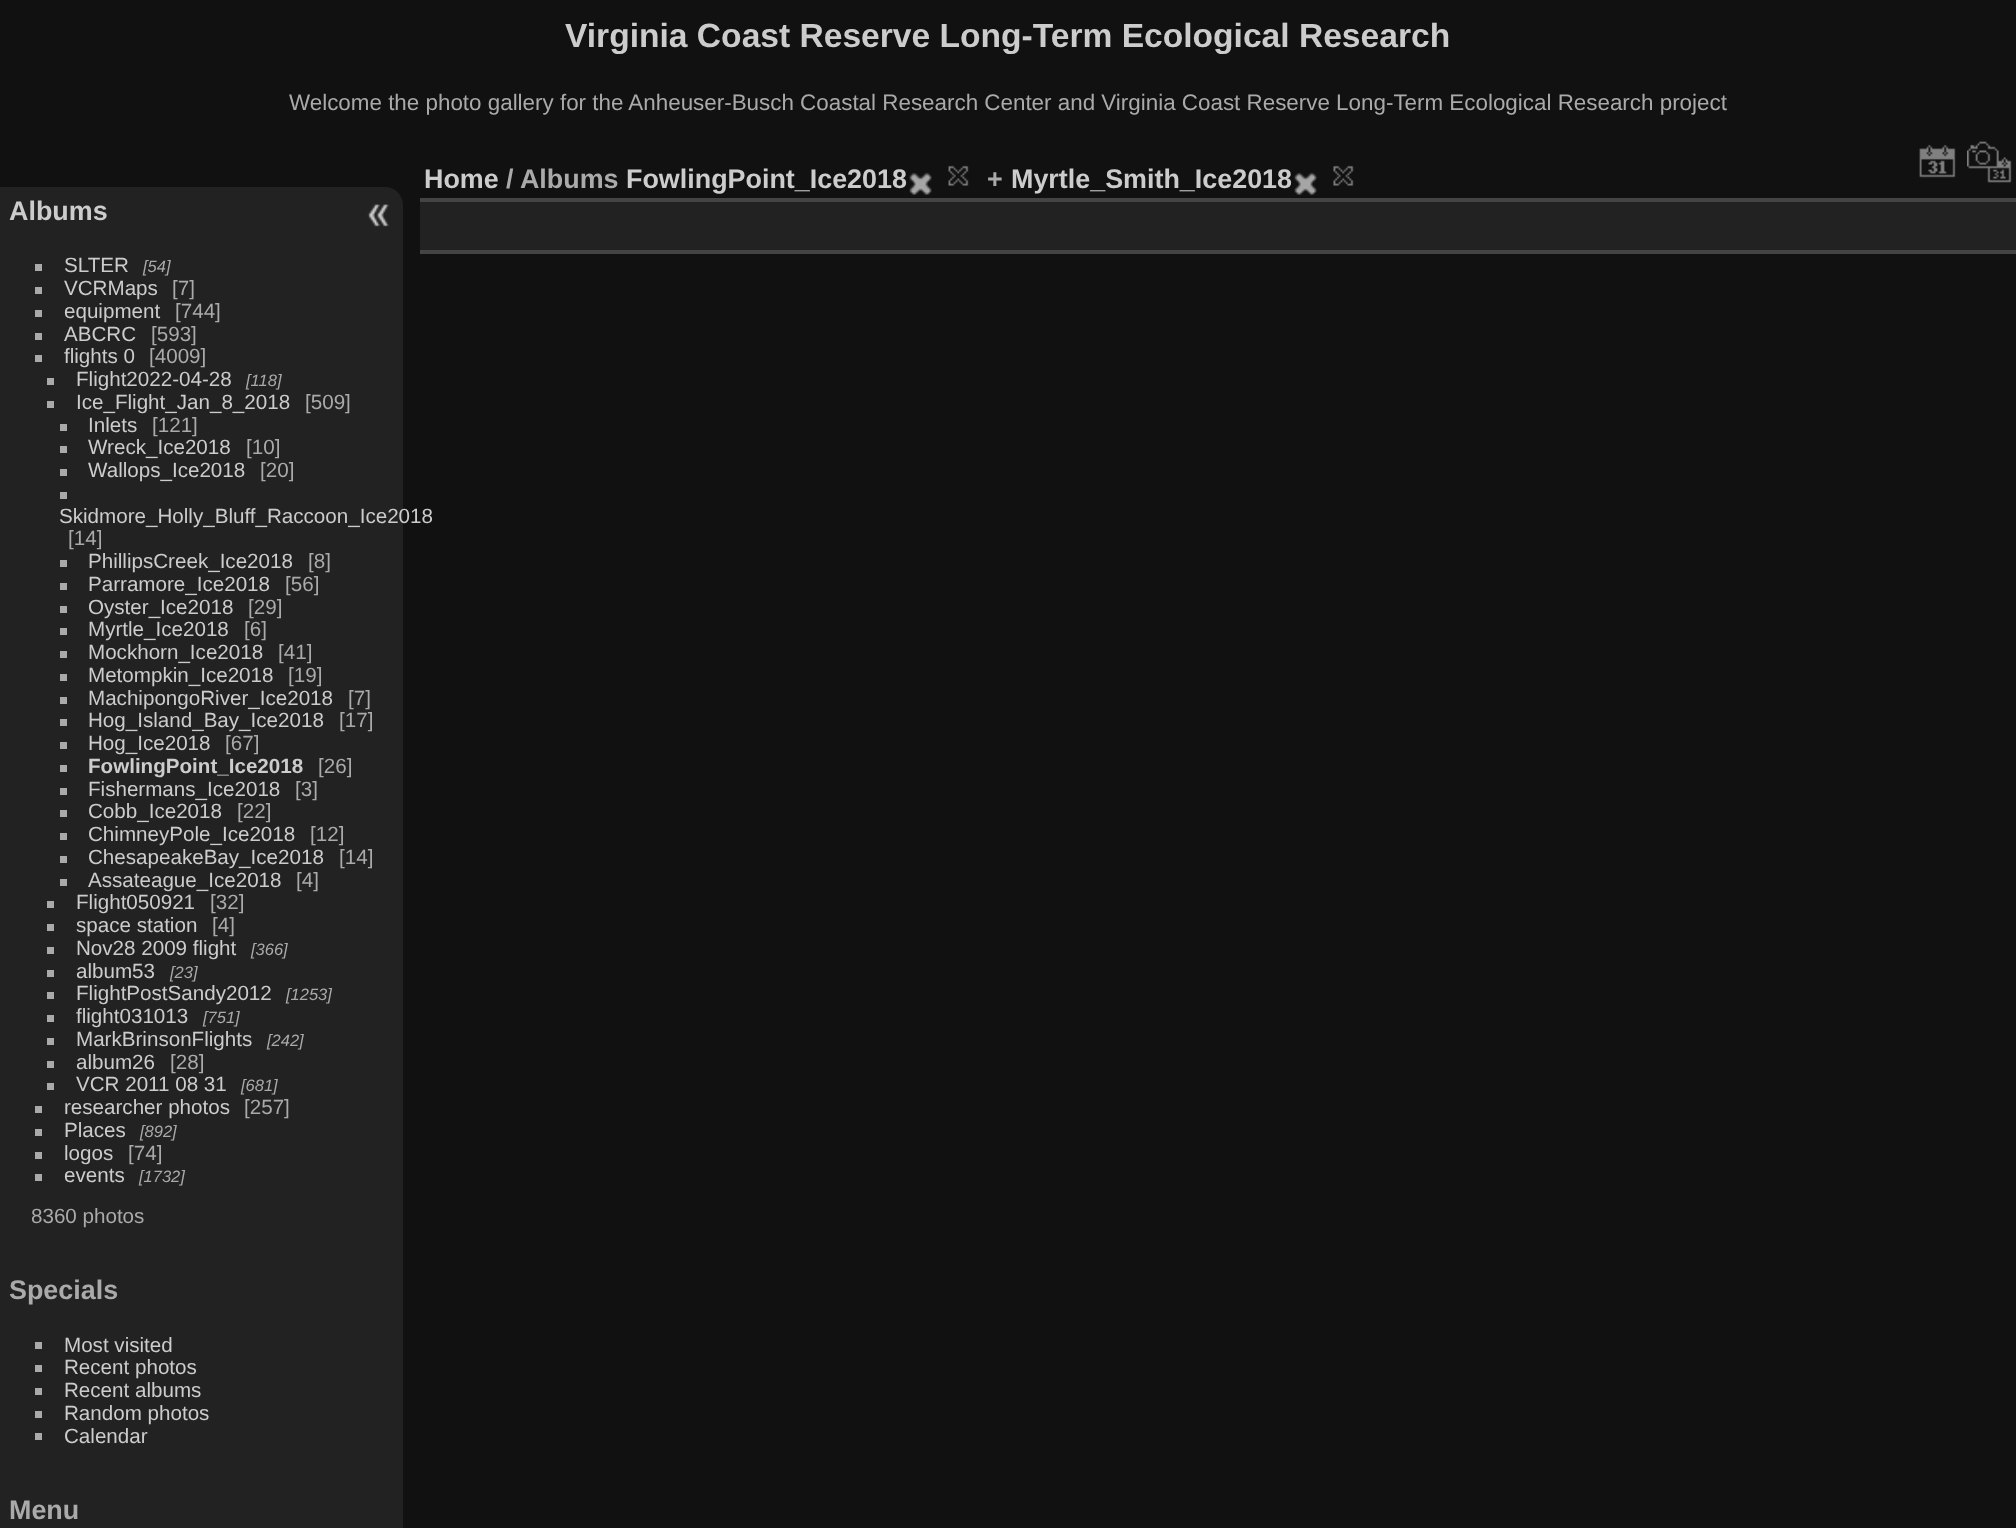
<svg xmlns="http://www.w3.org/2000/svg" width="2016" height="1528">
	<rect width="100%" height="100%" fill="#111111" />
	<text x="565" y="47" font-family="Liberation Sans" font-size="33.6" font-weight="700" fill="#CCCCCC">Virginia Coast Reserve Long-Term Ecological Research</text>
	<text x="289" y="110" font-family="Liberation Sans" font-size="22.4" fill="#AAAAAA">Welcome the photo gallery for the Anheuser-Busch Coastal Research Center and Virginia Coast Reserve Long-Term Ecological Research project</text>
	<rect x="420" y="202" width="1596" height="48" fill="#222222" />
	<rect x="420" y="250" width="1596" height="4" fill="#444444" />
	<rect x="420" y="198" width="1596" height="4" fill="#444444" />
	<text x="424" y="188" font-family="Liberation Sans" font-size="26.9" font-weight="700" fill="#CCCCCC">Home</text>
	<text x="506" y="188" font-family="Liberation Sans" font-size="26.9" font-weight="700" fill="#AAAAAA">/ Albums</text>
	<text x="626" y="188" font-family="Liberation Sans" font-size="26.9" font-weight="700" fill="#CCCCCC">FowlingPoint_Ice2018</text>
	<image x="909" y="172" width="23" height="24" href="assets/img1.png" />
	<image x="948" y="165" width="21" height="21" href="assets/img2.png" />
	<text x="987" y="188" font-family="Liberation Sans" font-size="26.9" font-weight="700" fill="#AAAAAA">+</text>
	<text x="1011" y="188" font-family="Liberation Sans" font-size="26.9" font-weight="700" fill="#CCCCCC">Myrtle_Smith_Ice2018</text>
	<image x="1294" y="172" width="23" height="24" href="assets/img3.png" />
	<image x="1333" y="165" width="21" height="21" href="assets/img4.png" />
	<image x="1919" y="144" width="37" height="34" href="assets/img5.png" />
	<image x="1967" y="141" width="45" height="42" href="assets/img6.png" />
	<path d="M0 187H385C395 187 403 195 403 205V1528C403 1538 395 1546 385 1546H0Z" fill="#222222" />
	<text x="9" y="220" font-family="Liberation Sans" font-size="26.9" font-weight="700" fill="#CCCCCC">Albums</text>
	<rect x="35" y="264" width="7" height="7" fill="#AAAAAA" />
	<text x="64" y="272" font-family="Liberation Sans" font-size="20.6" fill="#CCCCCC">SLTER</text>
	<text x="143" y="272" font-family="Liberation Sans" font-size="16.5" font-style="italic" fill="#AAAAAA">[54]</text>
	<rect x="35" y="287" width="7" height="7" fill="#AAAAAA" />
	<text x="64" y="295" font-family="Liberation Sans" font-size="20.6" fill="#CCCCCC">VCRMaps</text>
	<text x="172" y="295" font-family="Liberation Sans" font-size="20.6" fill="#AAAAAA">[7]</text>
	<rect x="35" y="310" width="7" height="7" fill="#AAAAAA" />
	<text x="64" y="318" font-family="Liberation Sans" font-size="20.6" fill="#CCCCCC">equipment</text>
	<text x="175" y="318" font-family="Liberation Sans" font-size="20.6" fill="#AAAAAA">[744]</text>
	<rect x="35" y="333" width="7" height="7" fill="#AAAAAA" />
	<text x="64" y="341" font-family="Liberation Sans" font-size="20.6" fill="#CCCCCC">ABCRC</text>
	<text x="151" y="341" font-family="Liberation Sans" font-size="20.6" fill="#AAAAAA">[593]</text>
	<rect x="35" y="355" width="7" height="7" fill="#AAAAAA" />
	<text x="64" y="363" font-family="Liberation Sans" font-size="20.6" fill="#CCCCCC">flights 0</text>
	<text x="149" y="363" font-family="Liberation Sans" font-size="20.6" fill="#AAAAAA">[4009]</text>
	<rect x="47" y="378" width="7" height="7" fill="#AAAAAA" />
	<text x="76" y="386" font-family="Liberation Sans" font-size="20.6" fill="#CCCCCC">Flight2022-04-28</text>
	<text x="246" y="386" font-family="Liberation Sans" font-size="16.5" font-style="italic" fill="#AAAAAA">[118]</text>
	<rect x="47" y="401" width="7" height="7" fill="#AAAAAA" />
	<text x="76" y="409" font-family="Liberation Sans" font-size="20.6" fill="#CCCCCC">Ice_Flight_Jan_8_2018</text>
	<text x="305" y="409" font-family="Liberation Sans" font-size="20.6" fill="#AAAAAA">[509]</text>
	<rect x="60" y="424" width="7" height="7" fill="#AAAAAA" />
	<text x="88" y="432" font-family="Liberation Sans" font-size="20.6" fill="#CCCCCC">Inlets</text>
	<text x="152" y="432" font-family="Liberation Sans" font-size="20.6" fill="#AAAAAA">[121]</text>
	<rect x="60" y="446" width="7" height="7" fill="#AAAAAA" />
	<text x="88" y="454" font-family="Liberation Sans" font-size="20.6" fill="#CCCCCC">Wreck_Ice2018</text>
	<text x="246" y="454" font-family="Liberation Sans" font-size="20.6" fill="#AAAAAA">[10]</text>
	<rect x="60" y="469" width="7" height="7" fill="#AAAAAA" />
	<text x="88" y="477" font-family="Liberation Sans" font-size="20.6" fill="#CCCCCC">Wallops_Ice2018</text>
	<text x="260" y="477" font-family="Liberation Sans" font-size="20.6" fill="#AAAAAA">[20]</text>
	<rect x="60" y="492" width="7" height="7" fill="#AAAAAA" />
	<text x="59" y="523" font-family="Liberation Sans" font-size="20.6" fill="#CCCCCC">Skidmore_Holly_Bluff_Raccoon_Ice2018</text>
	<text x="68" y="545" font-family="Liberation Sans" font-size="20.6" fill="#AAAAAA">[14]</text>
	<rect x="60" y="560" width="7" height="7" fill="#AAAAAA" />
	<text x="88" y="568" font-family="Liberation Sans" font-size="20.6" fill="#CCCCCC">PhillipsCreek_Ice2018</text>
	<text x="308" y="568" font-family="Liberation Sans" font-size="20.6" fill="#AAAAAA">[8]</text>
	<rect x="60" y="583" width="7" height="7" fill="#AAAAAA" />
	<text x="88" y="591" font-family="Liberation Sans" font-size="20.6" fill="#CCCCCC">Parramore_Ice2018</text>
	<text x="285" y="591" font-family="Liberation Sans" font-size="20.6" fill="#AAAAAA">[56]</text>
	<rect x="60" y="606" width="7" height="7" fill="#AAAAAA" />
	<text x="88" y="614" font-family="Liberation Sans" font-size="20.6" fill="#CCCCCC">Oyster_Ice2018</text>
	<text x="248" y="614" font-family="Liberation Sans" font-size="20.6" fill="#AAAAAA">[29]</text>
	<rect x="60" y="628" width="7" height="7" fill="#AAAAAA" />
	<text x="88" y="636" font-family="Liberation Sans" font-size="20.6" fill="#CCCCCC">Myrtle_Ice2018</text>
	<text x="244" y="636" font-family="Liberation Sans" font-size="20.6" fill="#AAAAAA">[6]</text>
	<rect x="60" y="651" width="7" height="7" fill="#AAAAAA" />
	<text x="88" y="659" font-family="Liberation Sans" font-size="20.6" fill="#CCCCCC">Mockhorn_Ice2018</text>
	<text x="278" y="659" font-family="Liberation Sans" font-size="20.6" fill="#AAAAAA">[41]</text>
	<rect x="60" y="674" width="7" height="7" fill="#AAAAAA" />
	<text x="88" y="682" font-family="Liberation Sans" font-size="20.6" fill="#CCCCCC">Metompkin_Ice2018</text>
	<text x="288" y="682" font-family="Liberation Sans" font-size="20.6" fill="#AAAAAA">[19]</text>
	<rect x="60" y="697" width="7" height="7" fill="#AAAAAA" />
	<text x="88" y="705" font-family="Liberation Sans" font-size="20.6" fill="#CCCCCC">MachipongoRiver_Ice2018</text>
	<text x="348" y="705" font-family="Liberation Sans" font-size="20.6" fill="#AAAAAA">[7]</text>
	<rect x="60" y="719" width="7" height="7" fill="#AAAAAA" />
	<text x="88" y="727" font-family="Liberation Sans" font-size="20.6" fill="#CCCCCC">Hog_Island_Bay_Ice2018</text>
	<text x="339" y="727" font-family="Liberation Sans" font-size="20.6" fill="#AAAAAA">[17]</text>
	<rect x="60" y="742" width="7" height="7" fill="#AAAAAA" />
	<text x="88" y="750" font-family="Liberation Sans" font-size="20.6" fill="#CCCCCC">Hog_Ice2018</text>
	<text x="225" y="750" font-family="Liberation Sans" font-size="20.6" fill="#AAAAAA">[67]</text>
	<rect x="60" y="765" width="7" height="7" fill="#AAAAAA" />
	<text x="88" y="773" font-family="Liberation Sans" font-size="20.6" font-weight="700" fill="#CCCCCC">FowlingPoint_Ice2018</text>
	<text x="318" y="773" font-family="Liberation Sans" font-size="20.6" fill="#AAAAAA">[26]</text>
	<rect x="60" y="788" width="7" height="7" fill="#AAAAAA" />
	<text x="88" y="796" font-family="Liberation Sans" font-size="20.6" fill="#CCCCCC">Fishermans_Ice2018</text>
	<text x="295" y="796" font-family="Liberation Sans" font-size="20.6" fill="#AAAAAA">[3]</text>
	<rect x="60" y="810" width="7" height="7" fill="#AAAAAA" />
	<text x="88" y="818" font-family="Liberation Sans" font-size="20.6" fill="#CCCCCC">Cobb_Ice2018</text>
	<text x="237" y="818" font-family="Liberation Sans" font-size="20.6" fill="#AAAAAA">[22]</text>
	<rect x="60" y="833" width="7" height="7" fill="#AAAAAA" />
	<text x="88" y="841" font-family="Liberation Sans" font-size="20.6" fill="#CCCCCC">ChimneyPole_Ice2018</text>
	<text x="310" y="841" font-family="Liberation Sans" font-size="20.6" fill="#AAAAAA">[12]</text>
	<rect x="60" y="856" width="7" height="7" fill="#AAAAAA" />
	<text x="88" y="864" font-family="Liberation Sans" font-size="20.6" fill="#CCCCCC">ChesapeakeBay_Ice2018</text>
	<text x="339" y="864" font-family="Liberation Sans" font-size="20.6" fill="#AAAAAA">[14]</text>
	<rect x="60" y="879" width="7" height="7" fill="#AAAAAA" />
	<text x="88" y="887" font-family="Liberation Sans" font-size="20.6" fill="#CCCCCC">Assateague_Ice2018</text>
	<text x="296" y="887" font-family="Liberation Sans" font-size="20.6" fill="#AAAAAA">[4]</text>
	<rect x="47" y="901" width="7" height="7" fill="#AAAAAA" />
	<text x="76" y="909" font-family="Liberation Sans" font-size="20.6" fill="#CCCCCC">Flight050921</text>
	<text x="210" y="909" font-family="Liberation Sans" font-size="20.6" fill="#AAAAAA">[32]</text>
	<rect x="47" y="924" width="7" height="7" fill="#AAAAAA" />
	<text x="76" y="932" font-family="Liberation Sans" font-size="20.6" fill="#CCCCCC">space station</text>
	<text x="212" y="932" font-family="Liberation Sans" font-size="20.6" fill="#AAAAAA">[4]</text>
	<rect x="47" y="947" width="7" height="7" fill="#AAAAAA" />
	<text x="76" y="955" font-family="Liberation Sans" font-size="20.6" fill="#CCCCCC">Nov28 2009 flight</text>
	<text x="251" y="955" font-family="Liberation Sans" font-size="16.5" font-style="italic" fill="#AAAAAA">[366]</text>
	<rect x="47" y="970" width="7" height="7" fill="#AAAAAA" />
	<text x="76" y="978" font-family="Liberation Sans" font-size="20.6" fill="#CCCCCC">album53</text>
	<text x="170" y="978" font-family="Liberation Sans" font-size="16.5" font-style="italic" fill="#AAAAAA">[23]</text>
	<rect x="47" y="992" width="7" height="7" fill="#AAAAAA" />
	<text x="76" y="1000" font-family="Liberation Sans" font-size="20.6" fill="#CCCCCC">FlightPostSandy2012</text>
	<text x="286" y="1000" font-family="Liberation Sans" font-size="16.5" font-style="italic" fill="#AAAAAA">[1253]</text>
	<rect x="47" y="1015" width="7" height="7" fill="#AAAAAA" />
	<text x="76" y="1023" font-family="Liberation Sans" font-size="20.6" fill="#CCCCCC">flight031013</text>
	<text x="203" y="1023" font-family="Liberation Sans" font-size="16.5" font-style="italic" fill="#AAAAAA">[751]</text>
	<rect x="47" y="1038" width="7" height="7" fill="#AAAAAA" />
	<text x="76" y="1046" font-family="Liberation Sans" font-size="20.6" fill="#CCCCCC">MarkBrinsonFlights</text>
	<text x="267" y="1046" font-family="Liberation Sans" font-size="16.5" font-style="italic" fill="#AAAAAA">[242]</text>
	<rect x="47" y="1061" width="7" height="7" fill="#AAAAAA" />
	<text x="76" y="1069" font-family="Liberation Sans" font-size="20.6" fill="#CCCCCC">album26</text>
	<text x="170" y="1069" font-family="Liberation Sans" font-size="20.6" fill="#AAAAAA">[28]</text>
	<rect x="47" y="1083" width="7" height="7" fill="#AAAAAA" />
	<text x="76" y="1091" font-family="Liberation Sans" font-size="20.6" fill="#CCCCCC">VCR 2011 08 31</text>
	<text x="241" y="1091" font-family="Liberation Sans" font-size="16.5" font-style="italic" fill="#AAAAAA">[681]</text>
	<rect x="35" y="1106" width="7" height="7" fill="#AAAAAA" />
	<text x="64" y="1114" font-family="Liberation Sans" font-size="20.6" fill="#CCCCCC">researcher photos</text>
	<text x="244" y="1114" font-family="Liberation Sans" font-size="20.6" fill="#AAAAAA">[257]</text>
	<rect x="35" y="1129" width="7" height="7" fill="#AAAAAA" />
	<text x="64" y="1137" font-family="Liberation Sans" font-size="20.6" fill="#CCCCCC">Places</text>
	<text x="140" y="1137" font-family="Liberation Sans" font-size="16.5" font-style="italic" fill="#AAAAAA">[892]</text>
	<rect x="35" y="1152" width="7" height="7" fill="#AAAAAA" />
	<text x="64" y="1160" font-family="Liberation Sans" font-size="20.6" fill="#CCCCCC">logos</text>
	<text x="128" y="1160" font-family="Liberation Sans" font-size="20.6" fill="#AAAAAA">[74]</text>
	<rect x="35" y="1174" width="7" height="7" fill="#AAAAAA" />
	<text x="64" y="1182" font-family="Liberation Sans" font-size="20.6" fill="#CCCCCC">events</text>
	<text x="139" y="1182" font-family="Liberation Sans" font-size="16.5" font-style="italic" fill="#AAAAAA">[1732]</text>
	<text x="31" y="1223" font-family="Liberation Sans" font-size="20.6" fill="#AAAAAA">8360 photos</text>
	<text x="9" y="1299" font-family="Liberation Sans" font-size="26.9" font-weight="700" fill="#AAAAAA">Specials</text>
	<rect x="35" y="1342" width="7" height="7" fill="#AAAAAA" />
	<text x="64" y="1352" font-family="Liberation Sans" font-size="20.6" fill="#CCCCCC">Most visited</text>
	<rect x="35" y="1365" width="7" height="7" fill="#AAAAAA" />
	<text x="64" y="1374" font-family="Liberation Sans" font-size="20.6" fill="#CCCCCC">Recent photos</text>
	<rect x="35" y="1388" width="7" height="7" fill="#AAAAAA" />
	<text x="64" y="1397" font-family="Liberation Sans" font-size="20.6" fill="#CCCCCC">Recent albums</text>
	<rect x="35" y="1411" width="7" height="7" fill="#AAAAAA" />
	<text x="64" y="1420" font-family="Liberation Sans" font-size="20.6" fill="#CCCCCC">Random photos</text>
	<rect x="35" y="1433" width="7" height="7" fill="#AAAAAA" />
	<text x="64" y="1443" font-family="Liberation Sans" font-size="20.6" fill="#CCCCCC">Calendar</text>
	<text x="9" y="1519" font-family="Liberation Sans" font-size="26.9" font-weight="700" fill="#AAAAAA">Menu</text>
	<image x="367" y="204" width="22" height="23" href="assets/img7.png" />
</svg>
